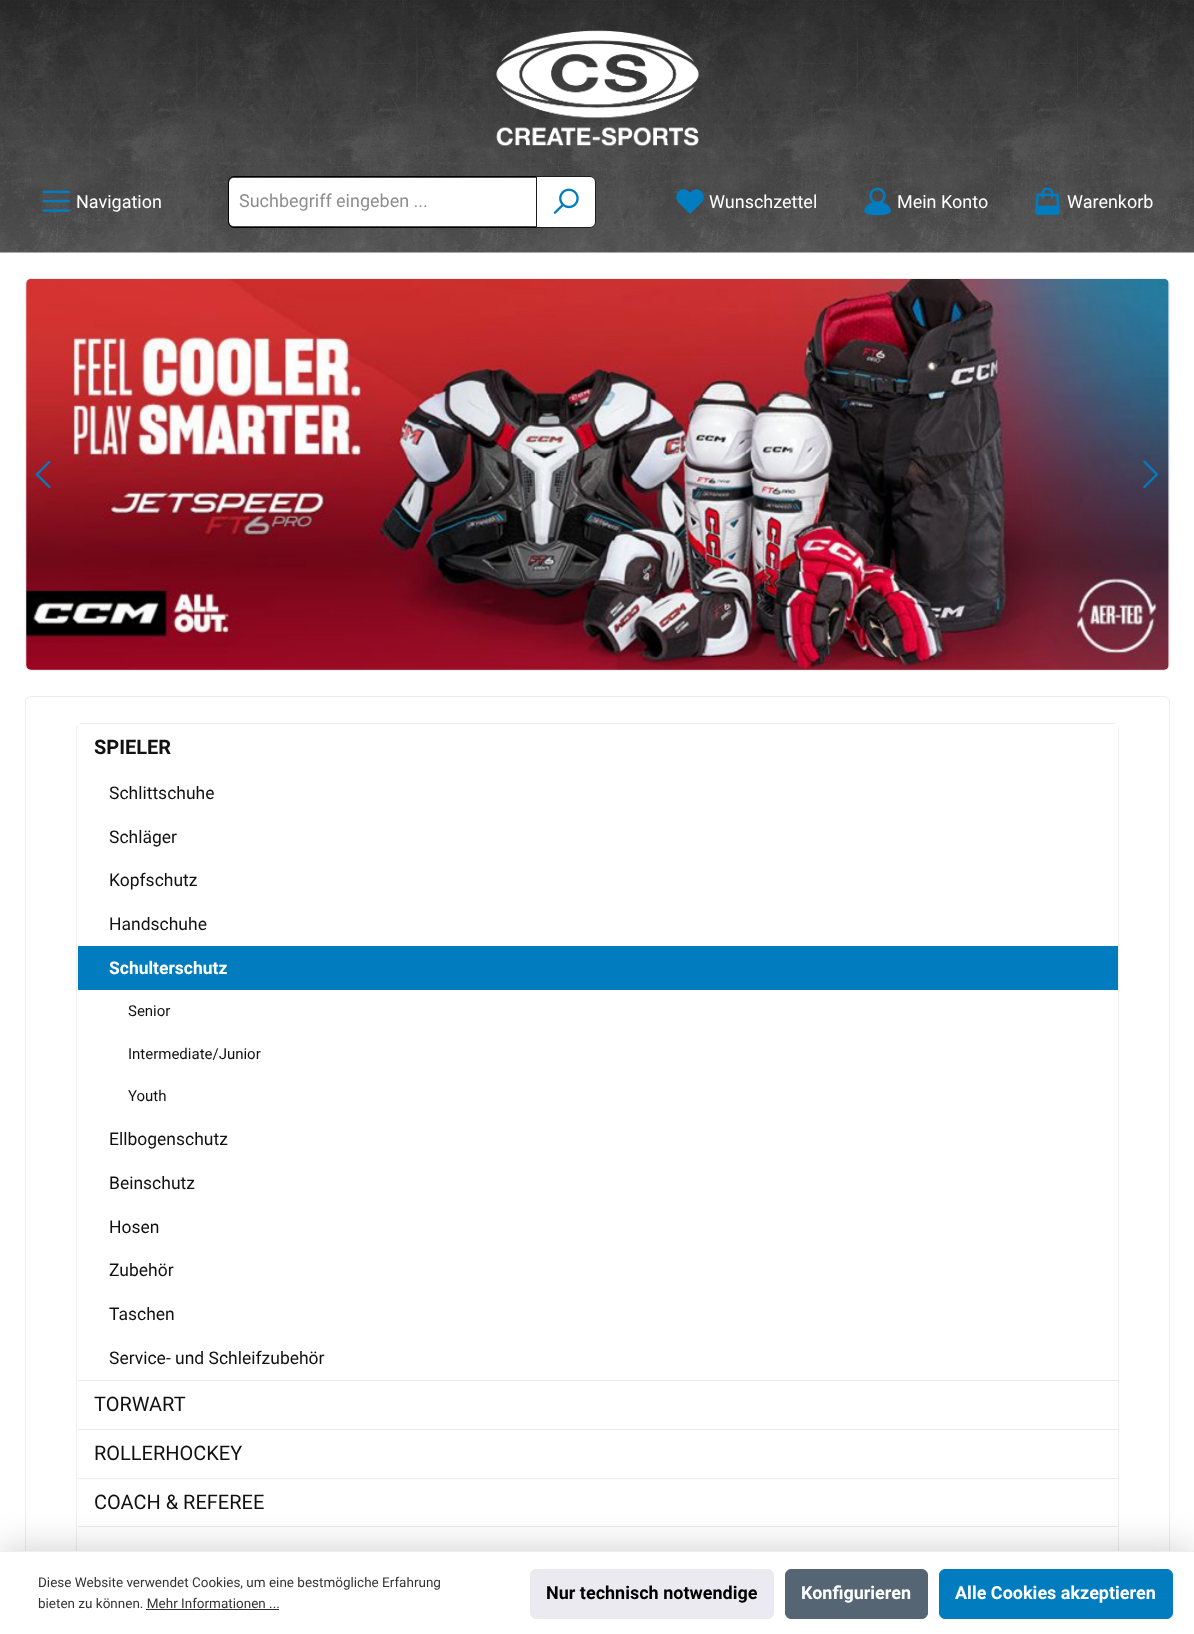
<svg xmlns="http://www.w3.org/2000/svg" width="1194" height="1634">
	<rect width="100%" height="100%" fill="#FFFFFF" />
	<image x="0" y="0" width="1194" height="253" href="assets/img1.png" />
	<image x="496" y="30" width="203" height="117" href="assets/img2.png" />
	<image x="42" y="190" width="28" height="22" href="assets/img3.png" />
	<text x="76" y="208" font-family="Roboto" font-size="18" fill="#FFFFFF">Navigation</text>
	<path d="M234 178H536V226H234C231 226 229 224 229 221V183C229 180 231 178 234 178Z" fill="#FFFFFF" />
	<path d="M234 176.5H537.5V227.5H234C231 227.5 228.5 225 228.5 222V182C228.5 179 231 176.5 234 176.5Z" fill="none" stroke="#000000" />
	<text x="239" y="207" font-family="Roboto" font-size="18" fill="#8E8E8E">Suchbegriff eingeben ...</text>
	<path d="M536.5 176.5H590C593 176.5 595.5 179 595.5 182V222C595.5 225 593 227.5 590 227.5H536.5Z" fill="#FFFFFF" stroke="#1D1D1B" />
	<image x="553" y="188" width="26" height="26" href="assets/img4.png" />
	<image x="676" y="189" width="28" height="25" href="assets/img5.png" />
	<text x="709" y="208" font-family="Roboto" font-size="18" fill="#FFFFFF">Wunschzettel</text>
	<image x="864" y="187" width="27" height="29" href="assets/img6.png" />
	<text x="897" y="208" font-family="Roboto" font-size="18" fill="#FFFFFF">Mein Konto</text>
	<image x="1035" y="187" width="25" height="28" href="assets/img7.png" />
	<text x="1067" y="208" font-family="Roboto" font-size="18" fill="#FFFFFF">Warenkorb</text>
	<rect x="25.5" y="278.5" width="1144" height="392" rx="5.5" fill="none" stroke="#EEEEEE" />
	<image x="26" y="279" width="1143" height="391" href="assets/img8.png" />
	<image x="35" y="461" width="16" height="28" href="assets/img9.png" />
	<image x="1143" y="461" width="16" height="28" href="assets/img10.png" />
	<rect x="25.5" y="696.5" width="1144" height="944" rx="5.5" fill="none" stroke="#EEEEEE" />
	<rect x="76.5" y="723.5" width="1042" height="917" rx="5.5" fill="none" stroke="#EEEEEE" />
	<rect x="78" y="1380" width="1040" height="1" fill="#EAEAF0" />
	<rect x="78" y="724" width="1040" height="4" fill="#FFFFFF" />
	<text x="94" y="754" font-family="Roboto" font-size="20" font-weight="700" fill="#111111">SPIELER</text>
	<g font-family="Roboto" font-size="17.5" fill="#111111">
		<text x="109" y="799">Schlittschuhe</text>
		<text x="109" y="843">Schläger</text>
		<text x="109" y="886">Kopfschutz</text>
		<text x="109" y="930">Handschuhe</text>
	</g>
	<rect x="78" y="946" width="1040" height="44" fill="#007CBF" />
	<text x="109" y="974" font-family="Roboto" font-size="17.5" font-weight="700" fill="#FFFFFF">Schulterschutz</text>
	<g font-family="Roboto" font-size="15" fill="#111111">
		<text x="128" y="1016">Senior</text>
		<text x="128" y="1059">Intermediate/Junior</text>
		<text x="128" y="1101">Youth</text>
	</g>
	<g font-family="Roboto" font-size="17.5" fill="#111111">
		<text x="109" y="1145">Ellbogenschutz</text>
		<text x="109" y="1189">Beinschutz</text>
		<text x="109" y="1233">Hosen</text>
		<text x="109" y="1276">Zubehör</text>
		<text x="109" y="1320">Taschen</text>
		<text x="109" y="1364">Service- und Schleifzubehör</text>
	</g>
	<rect x="78" y="1429" width="1040" height="1" fill="#EAEAF0" />
	<text x="94" y="1411" font-family="Roboto" font-size="20" fill="#111111">TORWART</text>
	<rect x="78" y="1478" width="1040" height="1" fill="#EAEAF0" />
	<text x="94" y="1460" font-family="Roboto" font-size="20" fill="#111111">ROLLERHOCKEY</text>
	<rect x="78" y="1526" width="1040" height="1" fill="#EAEAF0" />
	<text x="94" y="1509" font-family="Roboto" font-size="20" fill="#111111">COACH &amp; REFEREE</text>
	<rect x="0" y="1551" width="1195" height="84" fill="#000000" fill-opacity="0.2" filter="blur(19px)" />
	<rect x="0" y="1552" width="1194" height="82" fill="#FFFFFF" />
	<rect x="0" y="1551" width="1194" height="1" fill="#EEEEEE" />
	<g font-family="Roboto" font-size="13.5" fill="#333333">
		<text x="38" y="1587">Diese Website verwendet Cookies, um eine bestmögliche Erfahrung</text>
		<text x="38" y="1608">bieten zu können. Mehr Informationen ...</text>
	</g>
	<rect x="146" y="1609" width="133" height="1" fill="#333333" />
	<rect x="530.5" y="1569.5" width="243" height="49" rx="5.5" fill="#EAEAF0" stroke="#EAEAF0" />
	<text x="546" y="1599" font-family="Roboto" font-size="18" font-weight="700" fill="#000000">Nur technisch notwendige</text>
	<rect x="785.5" y="1569.5" width="142" height="49" rx="5.5" fill="#566573" stroke="#566573" />
	<text x="801" y="1599" font-family="Roboto" font-size="18" font-weight="700" fill="#FFFFFF">Konfigurieren</text>
	<rect x="939.5" y="1569.5" width="233" height="49" rx="5.5" fill="#007CBF" stroke="#007CBF" />
	<text x="955" y="1599" font-family="Roboto" font-size="18" font-weight="700" fill="#FFFFFF">Alle Cookies akzeptieren</text>
</svg>
